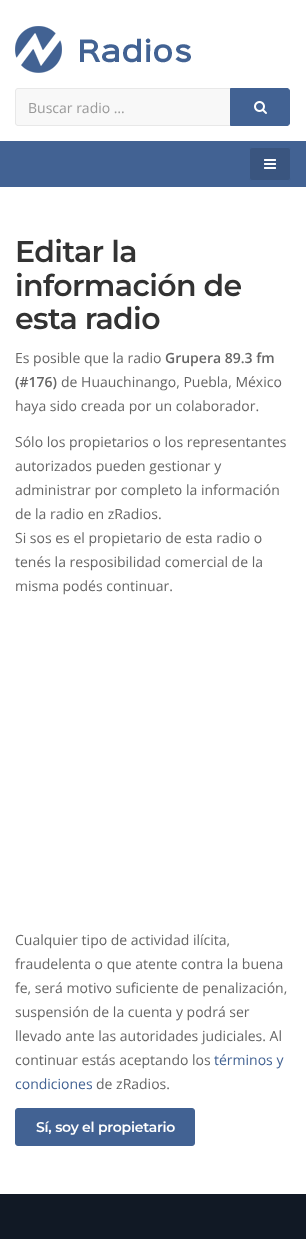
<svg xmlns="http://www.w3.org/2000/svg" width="306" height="1239">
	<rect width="100%" height="100%" fill="#FFFFFF" />
	<image x="15" y="26" width="176" height="47" href="assets/img1.png" />
	<path d="M18 88.5H230.5V125.5H18C16.5 125.5 15.5 124.5 15.5 123V91C15.5 89.5 16.5 88.5 18 88.5Z" fill="#F8F8F8" stroke="#E8E8E8" />
	<text x="28" y="113" font-family="Open Sans" font-size="14" fill="#999999">Buscar radio …</text>
	<path d="M230.5 88.5H287C288.5 88.5 289.5 89.5 289.5 91V123C289.5 124.5 288.5 125.5 287 125.5H230.5Z" fill="#426293" stroke="#426293" />
	<image x="254" y="101" width="13" height="13" href="assets/img2.png" />
	<rect x="0" y="141" width="306" height="46" fill="#426293" />
	<rect x="249.5" y="147.5" width="41" height="33" rx="2.5" fill="#3A557F" stroke="#426293" />
	<image x="264" y="159" width="12" height="10" href="assets/img3.png" />
	<g font-family="Montserrat" font-size="30" font-weight="600" letter-spacing="-0.6" fill="#333333">
		<text x="15" y="262">Editar la</text>
		<text x="15" y="296">información de</text>
		<text x="15" y="329">esta radio</text>
	</g>
	<text x="15" y="363" font-family="Open Sans" font-size="14" fill="#666666">Es posible que la radio</text>
	<g font-family="Open Sans" font-size="14" font-weight="600" fill="#666666">
		<text x="165" y="363">Grupera 89.3 fm</text>
		<text x="15" y="387">(#176)</text>
	</g>
	<g font-family="Open Sans" font-size="14" fill="#666666">
		<text x="61" y="387">de Huauchinango, Puebla, México</text>
		<text x="15" y="411">haya sido creada por un colaborador.</text>
		<text x="15" y="447">Sólo los propietarios o los representantes</text>
		<text x="15" y="471">autorizados pueden gestionar y</text>
		<text x="15" y="495">administrar por completo la información</text>
		<text x="15" y="519">de la radio en zRadios.</text>
		<text x="15" y="543">Si sos es el propietario de esta radio o</text>
		<text x="15" y="567">tenés la resposibilidad comercial de la</text>
		<text x="15" y="591">misma podés continuar.</text>
		<text x="15" y="945">Cualquier tipo de actividad ilícita,</text>
		<text x="15" y="969">fraudelenta o que atente contra la buena</text>
		<text x="15" y="993">fe, será motivo suficiente de penalización,</text>
		<text x="15" y="1017">suspensión de la cuenta y podrá ser</text>
		<text x="15" y="1041">llevado ante las autoridades judiciales. Al</text>
		<text x="15" y="1065">continuar estás aceptando los</text>
	</g>
	<g font-family="Open Sans" font-size="14" fill="#426293">
		<text x="214" y="1065">términos y</text>
		<text x="15" y="1089">condiciones</text>
	</g>
	<text x="96" y="1089" font-family="Open Sans" font-size="14" fill="#666666">de zRadios.</text>
	<rect x="15.5" y="1108.5" width="179" height="37" rx="2.5" fill="#426293" stroke="#426293" />
	<text x="36" y="1132" font-family="Montserrat" font-size="14" font-weight="600" letter-spacing="-0.25" fill="#FFFFFF">Sí, soy el propietario</text>
	<rect x="0" y="1194" width="306" height="45" fill="#111925" />
</svg>
